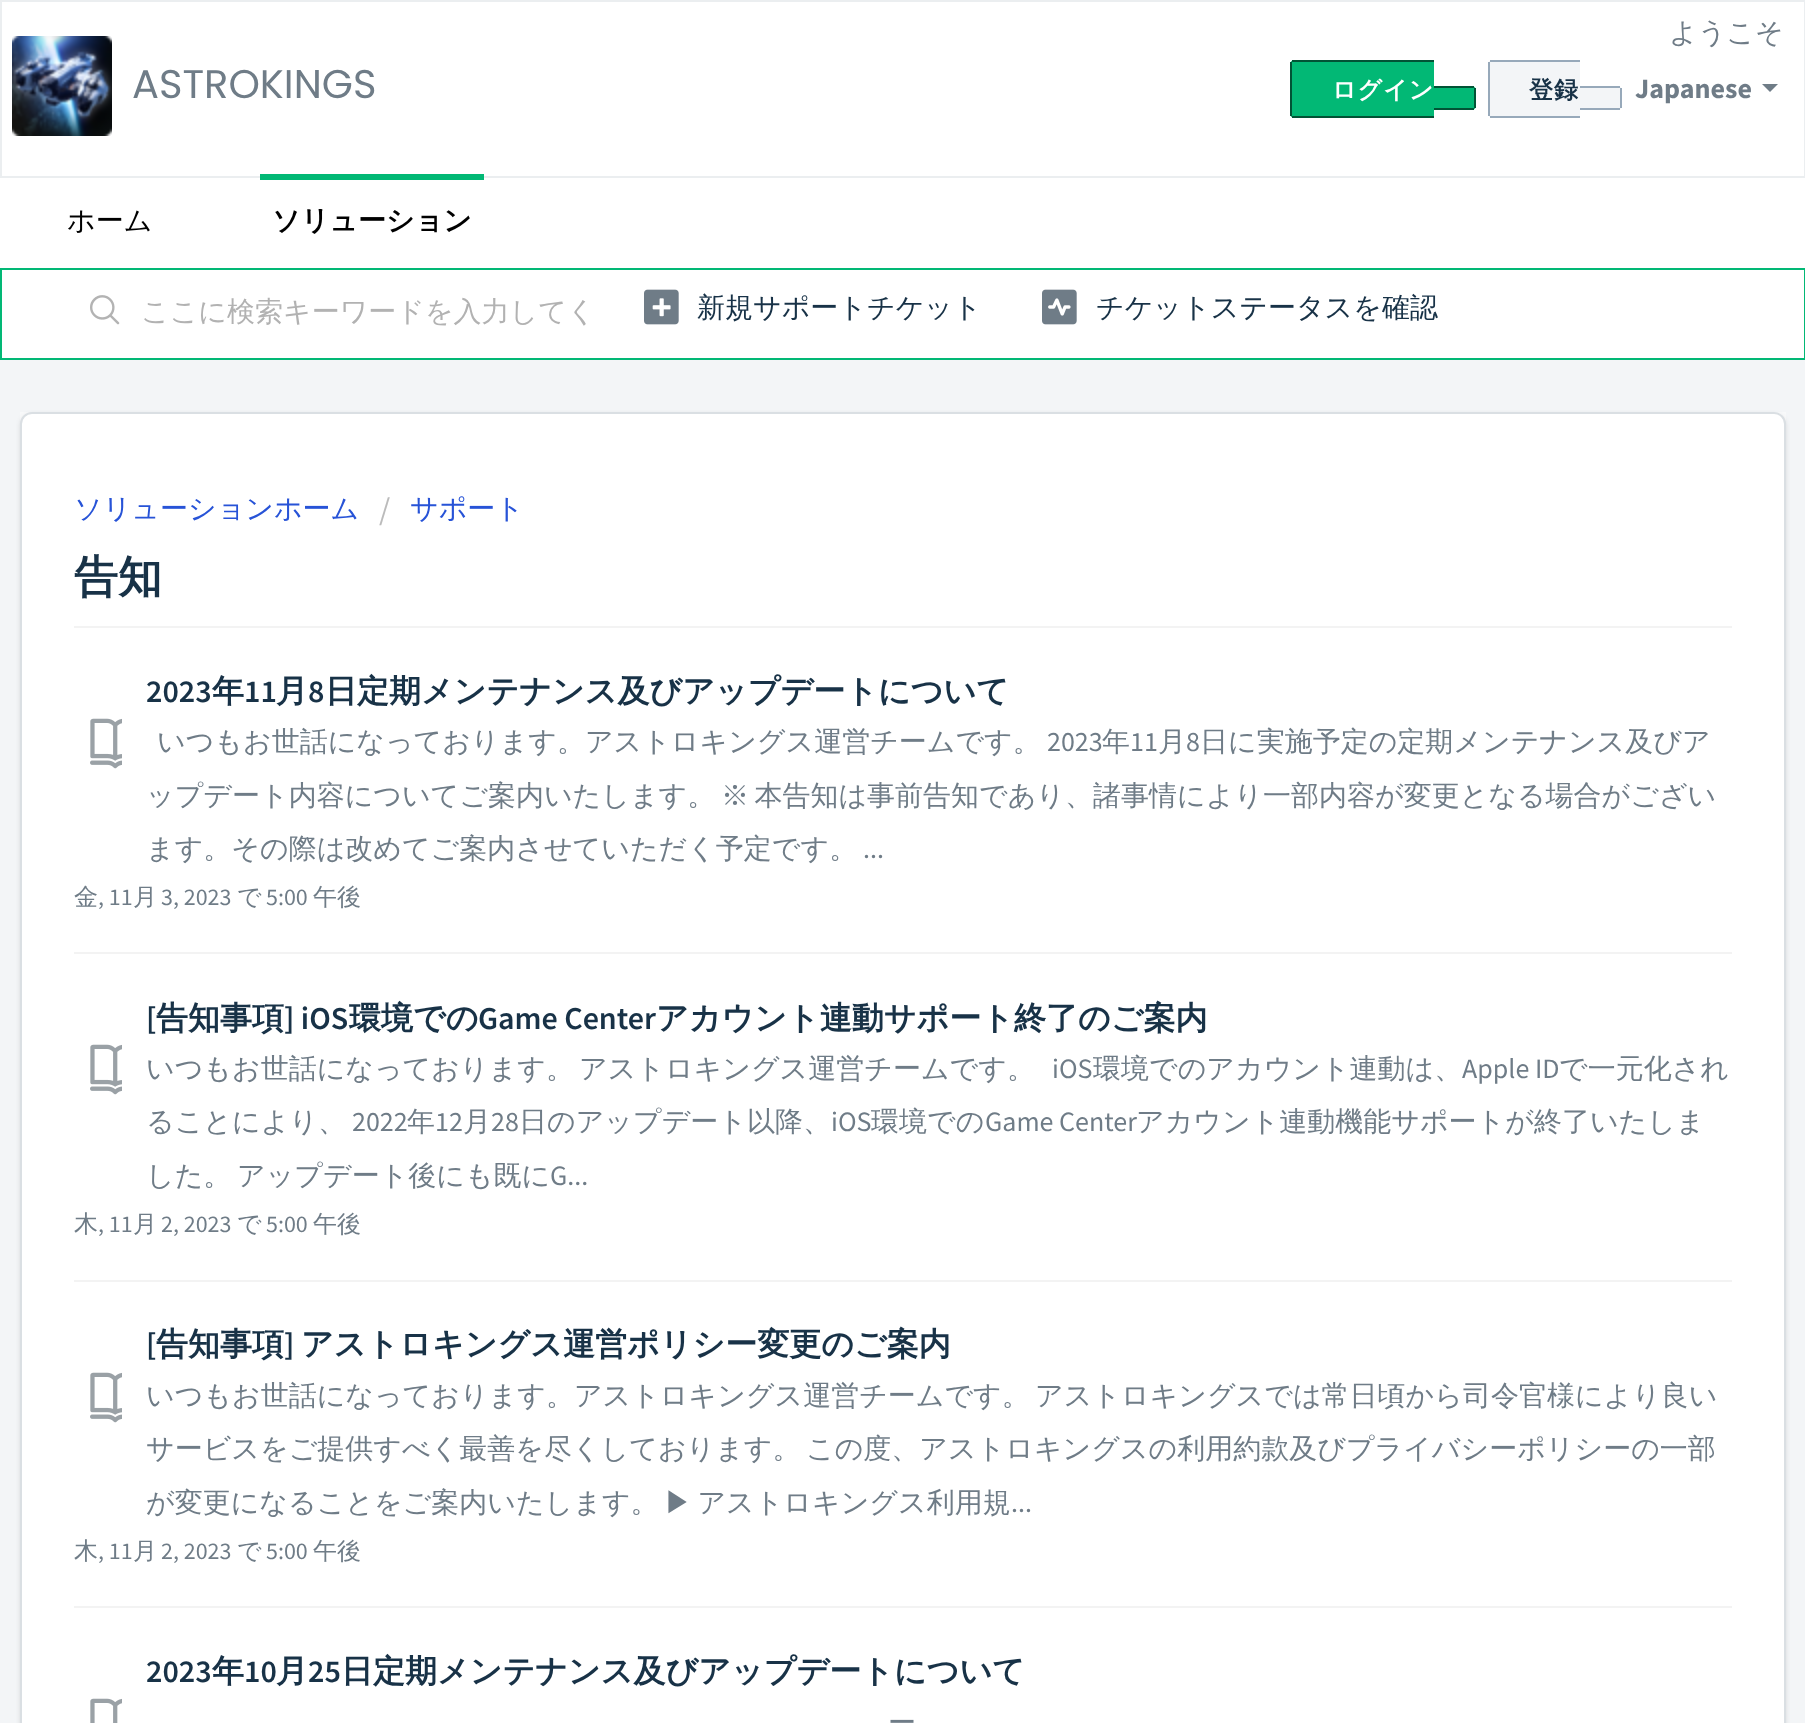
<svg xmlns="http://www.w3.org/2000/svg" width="1805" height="1723">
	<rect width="100%" height="100%" fill="#F3F5F7" />
	<rect x="1" y="1" width="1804" height="176" fill="#FFFFFF" stroke="#EBEEF0" stroke-width="2" />
	<image x="12" y="36" width="100" height="100" href="assets/img1.png" />
	<text x="132" y="98" font-family="Poppins" font-size="40" fill="#6F7C87">ASTROKINGS</text>
	<text x="1669" y="42" font-family="WenQuanYi Zen Hei" font-size="28" font-weight="500" fill="#6F7C87">ようこそ</text>
	<path d="M1294 60H1434V118H1294C1292 118 1290 116 1290 114V64C1290 62 1292 60 1294 60Z" fill="#02B875" />
	<text x="1332" y="98" font-family="WenQuanYi Zen Hei" font-size="24" font-weight="700" letter-spacing="1" fill="#FFFFFF">ログイン</text>
	<rect x="1292" y="60" width="142" height="2" fill="#015335" />
	<rect x="1292" y="116" width="142" height="2" fill="#015335" />
	<rect x="1290" y="62" width="2" height="54" fill="#015335" />
	<path d="M1434 86H1472C1474 86 1476 88 1476 90V106C1476 108 1474 110 1472 110H1434Z" fill="#02B875" />
	<rect x="1434" y="86" width="40" height="2" fill="#015335" />
	<rect x="1474" y="88" width="2" height="20" fill="#015335" />
	<rect x="1434" y="108" width="40" height="2" fill="#015335" />
	<path d="M1492 60H1580V118H1492C1490 118 1488 116 1488 114V64C1488 62 1490 60 1492 60Z" fill="#F3F5F7" />
	<text x="1529" y="98" font-family="WenQuanYi Zen Hei" font-size="24" font-weight="700" letter-spacing="1" fill="#183247">登録</text>
	<rect x="1490" y="60" width="90" height="2" fill="#97A9BA" />
	<rect x="1490" y="116" width="90" height="2" fill="#97A9BA" />
	<rect x="1488" y="62" width="2" height="54" fill="#97A9BA" />
	<path d="M1580 86H1618C1620 86 1622 88 1622 90V106C1622 108 1620 110 1618 110H1580Z" fill="#F3F5F7" />
	<rect x="1580" y="86" width="40" height="2" fill="#97A9BA" />
	<rect x="1620" y="88" width="2" height="20" fill="#97A9BA" />
	<rect x="1580" y="108" width="40" height="2" fill="#97A9BA" />
	<text x="1635" y="98" font-family="Source Sans Pro" font-size="28" font-weight="700" fill="#6F7C87">Japanese</text>
	<path d="M1762 84H1778L1770 92Z" fill="#6F7C87" />
	<rect x="0" y="178" width="1805" height="90" fill="#FFFFFF" />
	<text x="67" y="230" font-family="WenQuanYi Zen Hei" font-size="28" font-weight="500" fill="#000000">ホーム</text>
	<rect x="260" y="174" width="224" height="6" fill="#02B875" />
	<text x="272" y="230" font-family="WenQuanYi Zen Hei" font-size="28" font-weight="700" fill="#000000">ソリューション</text>
	<rect x="1" y="269" width="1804" height="90" fill="#FFFFFF" stroke="#02B875" stroke-width="2" />
	<image x="90" y="295" width="30" height="30" href="assets/img2.png" />
	<text x="141" y="321" font-family="WenQuanYi Zen Hei" font-size="28" font-weight="500" fill="#B2B2B2">ここに検索キーワードを入力してく</text>
	<image x="644" y="289" width="35" height="36" href="assets/img3.png" />
	<text x="697" y="317" font-family="WenQuanYi Zen Hei" font-size="28" font-weight="500" fill="#183247">新規サポートチケット</text>
	<image x="1042" y="289" width="35" height="36" href="assets/img4.png" />
	<text x="1096" y="317" font-family="WenQuanYi Zen Hei" font-size="28" font-weight="500" fill="#183247">チケットステータスを確認</text>
	<rect x="20" y="412" width="1766" height="12" fill="#F8F9FA" />
	<rect x="20" y="414" width="1766" height="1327" rx="12" fill="#3F3F44" fill-opacity="0.15" filter="blur(2px)" />
	<rect x="21" y="413" width="1764" height="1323" rx="11" fill="#FFFFFF" stroke="#DADFE3" stroke-width="2" />
	<text x="74" y="518" font-family="WenQuanYi Zen Hei" font-size="28" font-weight="500" fill="#2753D7">ソリューションホーム</text>
	<text x="379" y="520" font-family="Source Sans Pro" font-size="32" fill="#BBBBBB">/</text>
	<text x="410" y="518" font-family="WenQuanYi Zen Hei" font-size="28" font-weight="500" fill="#2753D7">サポート</text>
	<text x="74" y="592" font-family="WenQuanYi Zen Hei" font-size="44" font-weight="700" fill="#183247">告知</text>
	<rect x="74" y="626" width="1658" height="2" fill="#F3F3F3" />
	<text x="146" y="702" font-family="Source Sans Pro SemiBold" font-size="32" font-weight="600" fill="#183247">2023</text>
	<text x="212" y="702" font-family="WenQuanYi Zen Hei" font-size="32" font-weight="700" fill="#183247">年</text>
	<text x="244" y="702" font-family="Source Sans Pro SemiBold" font-size="32" font-weight="600" fill="#183247">11</text>
	<text x="276" y="702" font-family="WenQuanYi Zen Hei" font-size="32" font-weight="700" fill="#183247">月</text>
	<text x="308" y="702" font-family="Source Sans Pro SemiBold" font-size="32" font-weight="600" fill="#183247">8</text>
	<text x="325" y="702" font-family="WenQuanYi Zen Hei" font-size="32" font-weight="700" fill="#183247">日定期メンテナンス及びアップデートについて</text>
	<image x="90" y="718" width="32" height="51" href="assets/img5.png" />
	<text x="157" y="751" font-family="WenQuanYi Zen Hei" font-size="28" font-weight="500" fill="#6F7C87">いつもお世話になっております。アストロキングス運営チームです。</text>
	<text x="1047" y="751" font-family="Source Sans Pro" font-size="28" fill="#6F7C87">2023</text>
	<text x="1102" y="751" font-family="WenQuanYi Zen Hei" font-size="28" font-weight="500" fill="#6F7C87">年</text>
	<text x="1130" y="751" font-family="Source Sans Pro" font-size="28" fill="#6F7C87">11</text>
	<text x="1158" y="751" font-family="WenQuanYi Zen Hei" font-size="28" font-weight="500" fill="#6F7C87">月</text>
	<text x="1186" y="751" font-family="Source Sans Pro" font-size="28" fill="#6F7C87">8</text>
	<g font-family="WenQuanYi Zen Hei" font-size="28" font-weight="500" fill="#6F7C87">
		<text x="1200" y="751">日に実施予定の定期メンテナンス及びア</text>
		<text x="146" y="805">ップデート内容についてご案内いたします。</text>
		<text x="721" y="805" word-spacing="-3">※ 本告知は事前告知であり、諸事情により一部内容が変更となる場合がござい</text>
		<text x="146" y="858">ます。その際は改めてご案内させていただく予定です。</text>
	</g>
	<text x="863" y="858" font-family="Source Sans Pro" font-size="28" fill="#6F7C87">...</text>
	<text x="74" y="905" font-family="WenQuanYi Zen Hei" font-size="24" font-weight="500" fill="#6F7C87">金</text>
	<text x="98" y="905" font-family="Source Sans Pro" font-size="24" fill="#6F7C87">, 11</text>
	<text x="133" y="905" font-family="WenQuanYi Zen Hei" font-size="24" font-weight="500" fill="#6F7C87">月</text>
	<text x="161" y="905" font-family="Source Sans Pro" font-size="24" fill="#6F7C87">3, 2023</text>
	<text x="237" y="905" font-family="WenQuanYi Zen Hei" font-size="24" font-weight="500" fill="#6F7C87">で</text>
	<text x="266" y="905" font-family="Source Sans Pro" font-size="24" fill="#6F7C87">5:00</text>
	<text x="313" y="905" font-family="WenQuanYi Zen Hei" font-size="24" font-weight="500" fill="#6F7C87">午後</text>
	<rect x="74" y="952" width="1658" height="2" fill="#F3F3F3" />
	<text x="146" y="1029" font-family="Source Sans Pro SemiBold" font-size="32" font-weight="600" fill="#183247">[</text>
	<text x="156" y="1029" font-family="WenQuanYi Zen Hei" font-size="32" font-weight="700" fill="#183247">告知事項</text>
	<text x="284" y="1029" font-family="Source Sans Pro SemiBold" font-size="32" font-weight="600" fill="#183247">] iOS</text>
	<text x="349" y="1029" font-family="WenQuanYi Zen Hei" font-size="32" font-weight="700" fill="#183247">環境での</text>
	<text x="478" y="1029" font-family="Source Sans Pro SemiBold" font-size="32" font-weight="600" fill="#183247">Game Center</text>
	<text x="656" y="1029" font-family="WenQuanYi Zen Hei" font-size="32" font-weight="700" fill="#183247">アカウント連動サポート終了のご案内</text>
	<image x="90" y="1044" width="32" height="51" href="assets/img5.png" />
	<g font-family="WenQuanYi Zen Hei" font-size="28" font-weight="500" fill="#6F7C87">
		<text x="146" y="1078">いつもお世話になっております。</text>
		<text x="579" y="1078">アストロキングス運営チームです。</text>
	</g>
	<text x="1052" y="1078" font-family="Source Sans Pro" font-size="28" fill="#6F7C87">iOS</text>
	<text x="1093" y="1078" font-family="WenQuanYi Zen Hei" font-size="28" font-weight="500" fill="#6F7C87">環境でのアカウント連動は、</text>
	<text x="1462" y="1078" font-family="Source Sans Pro" font-size="28" fill="#6F7C87">Apple ID</text>
	<g font-family="WenQuanYi Zen Hei" font-size="28" font-weight="500" fill="#6F7C87">
		<text x="1559" y="1078">で一元化され</text>
		<text x="146" y="1131">ることにより、</text>
	</g>
	<text x="352" y="1131" font-family="Source Sans Pro" font-size="28" fill="#6F7C87">2022</text>
	<text x="407" y="1131" font-family="WenQuanYi Zen Hei" font-size="28" font-weight="500" fill="#6F7C87">年</text>
	<text x="435" y="1131" font-family="Source Sans Pro" font-size="28" fill="#6F7C87">12</text>
	<text x="463" y="1131" font-family="WenQuanYi Zen Hei" font-size="28" font-weight="500" fill="#6F7C87">月</text>
	<text x="491" y="1131" font-family="Source Sans Pro" font-size="28" fill="#6F7C87">28</text>
	<text x="519" y="1131" font-family="WenQuanYi Zen Hei" font-size="28" font-weight="500" fill="#6F7C87">日のアップデート以降、</text>
	<text x="831" y="1131" font-family="Source Sans Pro" font-size="28" fill="#6F7C87">iOS</text>
	<text x="871" y="1131" font-family="WenQuanYi Zen Hei" font-size="28" font-weight="500" fill="#6F7C87">環境での</text>
	<text x="985" y="1131" font-family="Source Sans Pro" font-size="28" fill="#6F7C87">Game Center</text>
	<g font-family="WenQuanYi Zen Hei" font-size="28" font-weight="500" fill="#6F7C87">
		<text x="1136" y="1131">アカウント連動機能サポートが終了いたしま</text>
		<text x="146" y="1185">した。</text>
		<text x="237" y="1185">アップデート後にも既に</text>
	</g>
	<text x="550" y="1185" font-family="Source Sans Pro" font-size="28" fill="#6F7C87">G...</text>
	<text x="74" y="1232" font-family="WenQuanYi Zen Hei" font-size="24" font-weight="500" fill="#6F7C87">木</text>
	<text x="98" y="1232" font-family="Source Sans Pro" font-size="24" fill="#6F7C87">, 11</text>
	<text x="133" y="1232" font-family="WenQuanYi Zen Hei" font-size="24" font-weight="500" fill="#6F7C87">月</text>
	<text x="161" y="1232" font-family="Source Sans Pro" font-size="24" fill="#6F7C87">2, 2023</text>
	<text x="237" y="1232" font-family="WenQuanYi Zen Hei" font-size="24" font-weight="500" fill="#6F7C87">で</text>
	<text x="266" y="1232" font-family="Source Sans Pro" font-size="24" fill="#6F7C87">5:00</text>
	<text x="313" y="1232" font-family="WenQuanYi Zen Hei" font-size="24" font-weight="500" fill="#6F7C87">午後</text>
	<rect x="74" y="1280" width="1658" height="2" fill="#F3F3F3" />
	<text x="146" y="1355" font-family="Source Sans Pro SemiBold" font-size="32" font-weight="600" fill="#183247">[</text>
	<text x="156" y="1355" font-family="WenQuanYi Zen Hei" font-size="32" font-weight="700" fill="#183247">告知事項</text>
	<text x="284" y="1355" font-family="Source Sans Pro SemiBold" font-size="32" font-weight="600" fill="#183247">]</text>
	<text x="301" y="1355" font-family="WenQuanYi Zen Hei" font-size="32" font-weight="700" fill="#183247">アストロキングス運営ポリシー変更のご案内</text>
	<image x="90" y="1372" width="32" height="51" href="assets/img5.png" />
	<g font-family="WenQuanYi Zen Hei" font-size="28" font-weight="500" fill="#6F7C87">
		<text x="146" y="1405">いつもお世話になっております。アストロキングス運営チームです。</text>
		<text x="1035" y="1405">アストロキングスでは常日頃から司令官様により良い</text>
		<text x="146" y="1458">サービスをご提供すべく最善を尽くしております。</text>
		<text x="806" y="1458">この度、アストロキングスの利用約款及びプライバシーポリシーの一部</text>
		<text x="146" y="1512">が変更になることをご案内いたします。</text>
		<text x="664" y="1512" word-spacing="-3">▶ アストロキングス利用規</text>
	</g>
	<text x="1011" y="1512" font-family="Source Sans Pro" font-size="28" fill="#6F7C87">...</text>
	<text x="74" y="1559" font-family="WenQuanYi Zen Hei" font-size="24" font-weight="500" fill="#6F7C87">木</text>
	<text x="98" y="1559" font-family="Source Sans Pro" font-size="24" fill="#6F7C87">, 11</text>
	<text x="133" y="1559" font-family="WenQuanYi Zen Hei" font-size="24" font-weight="500" fill="#6F7C87">月</text>
	<text x="161" y="1559" font-family="Source Sans Pro" font-size="24" fill="#6F7C87">2, 2023</text>
	<text x="237" y="1559" font-family="WenQuanYi Zen Hei" font-size="24" font-weight="500" fill="#6F7C87">で</text>
	<text x="266" y="1559" font-family="Source Sans Pro" font-size="24" fill="#6F7C87">5:00</text>
	<text x="313" y="1559" font-family="WenQuanYi Zen Hei" font-size="24" font-weight="500" fill="#6F7C87">午後</text>
	<rect x="74" y="1606" width="1658" height="2" fill="#F3F3F3" />
	<text x="146" y="1682" font-family="Source Sans Pro SemiBold" font-size="32" font-weight="600" fill="#183247">2023</text>
	<text x="212" y="1682" font-family="WenQuanYi Zen Hei" font-size="32" font-weight="700" fill="#183247">年</text>
	<text x="244" y="1682" font-family="Source Sans Pro SemiBold" font-size="32" font-weight="600" fill="#183247">10</text>
	<text x="276" y="1682" font-family="WenQuanYi Zen Hei" font-size="32" font-weight="700" fill="#183247">月</text>
	<text x="308" y="1682" font-family="Source Sans Pro SemiBold" font-size="32" font-weight="600" fill="#183247">25</text>
	<text x="341" y="1682" font-family="WenQuanYi Zen Hei" font-size="32" font-weight="700" fill="#183247">日定期メンテナンス及びアップデートについて</text>
	<image x="90" y="1698" width="32" height="25" href="assets/img6.png" />
	<text x="888" y="1732" font-family="WenQuanYi Zen Hei" font-size="28" font-weight="500" fill="#6F7C87">ー</text>
</svg>
